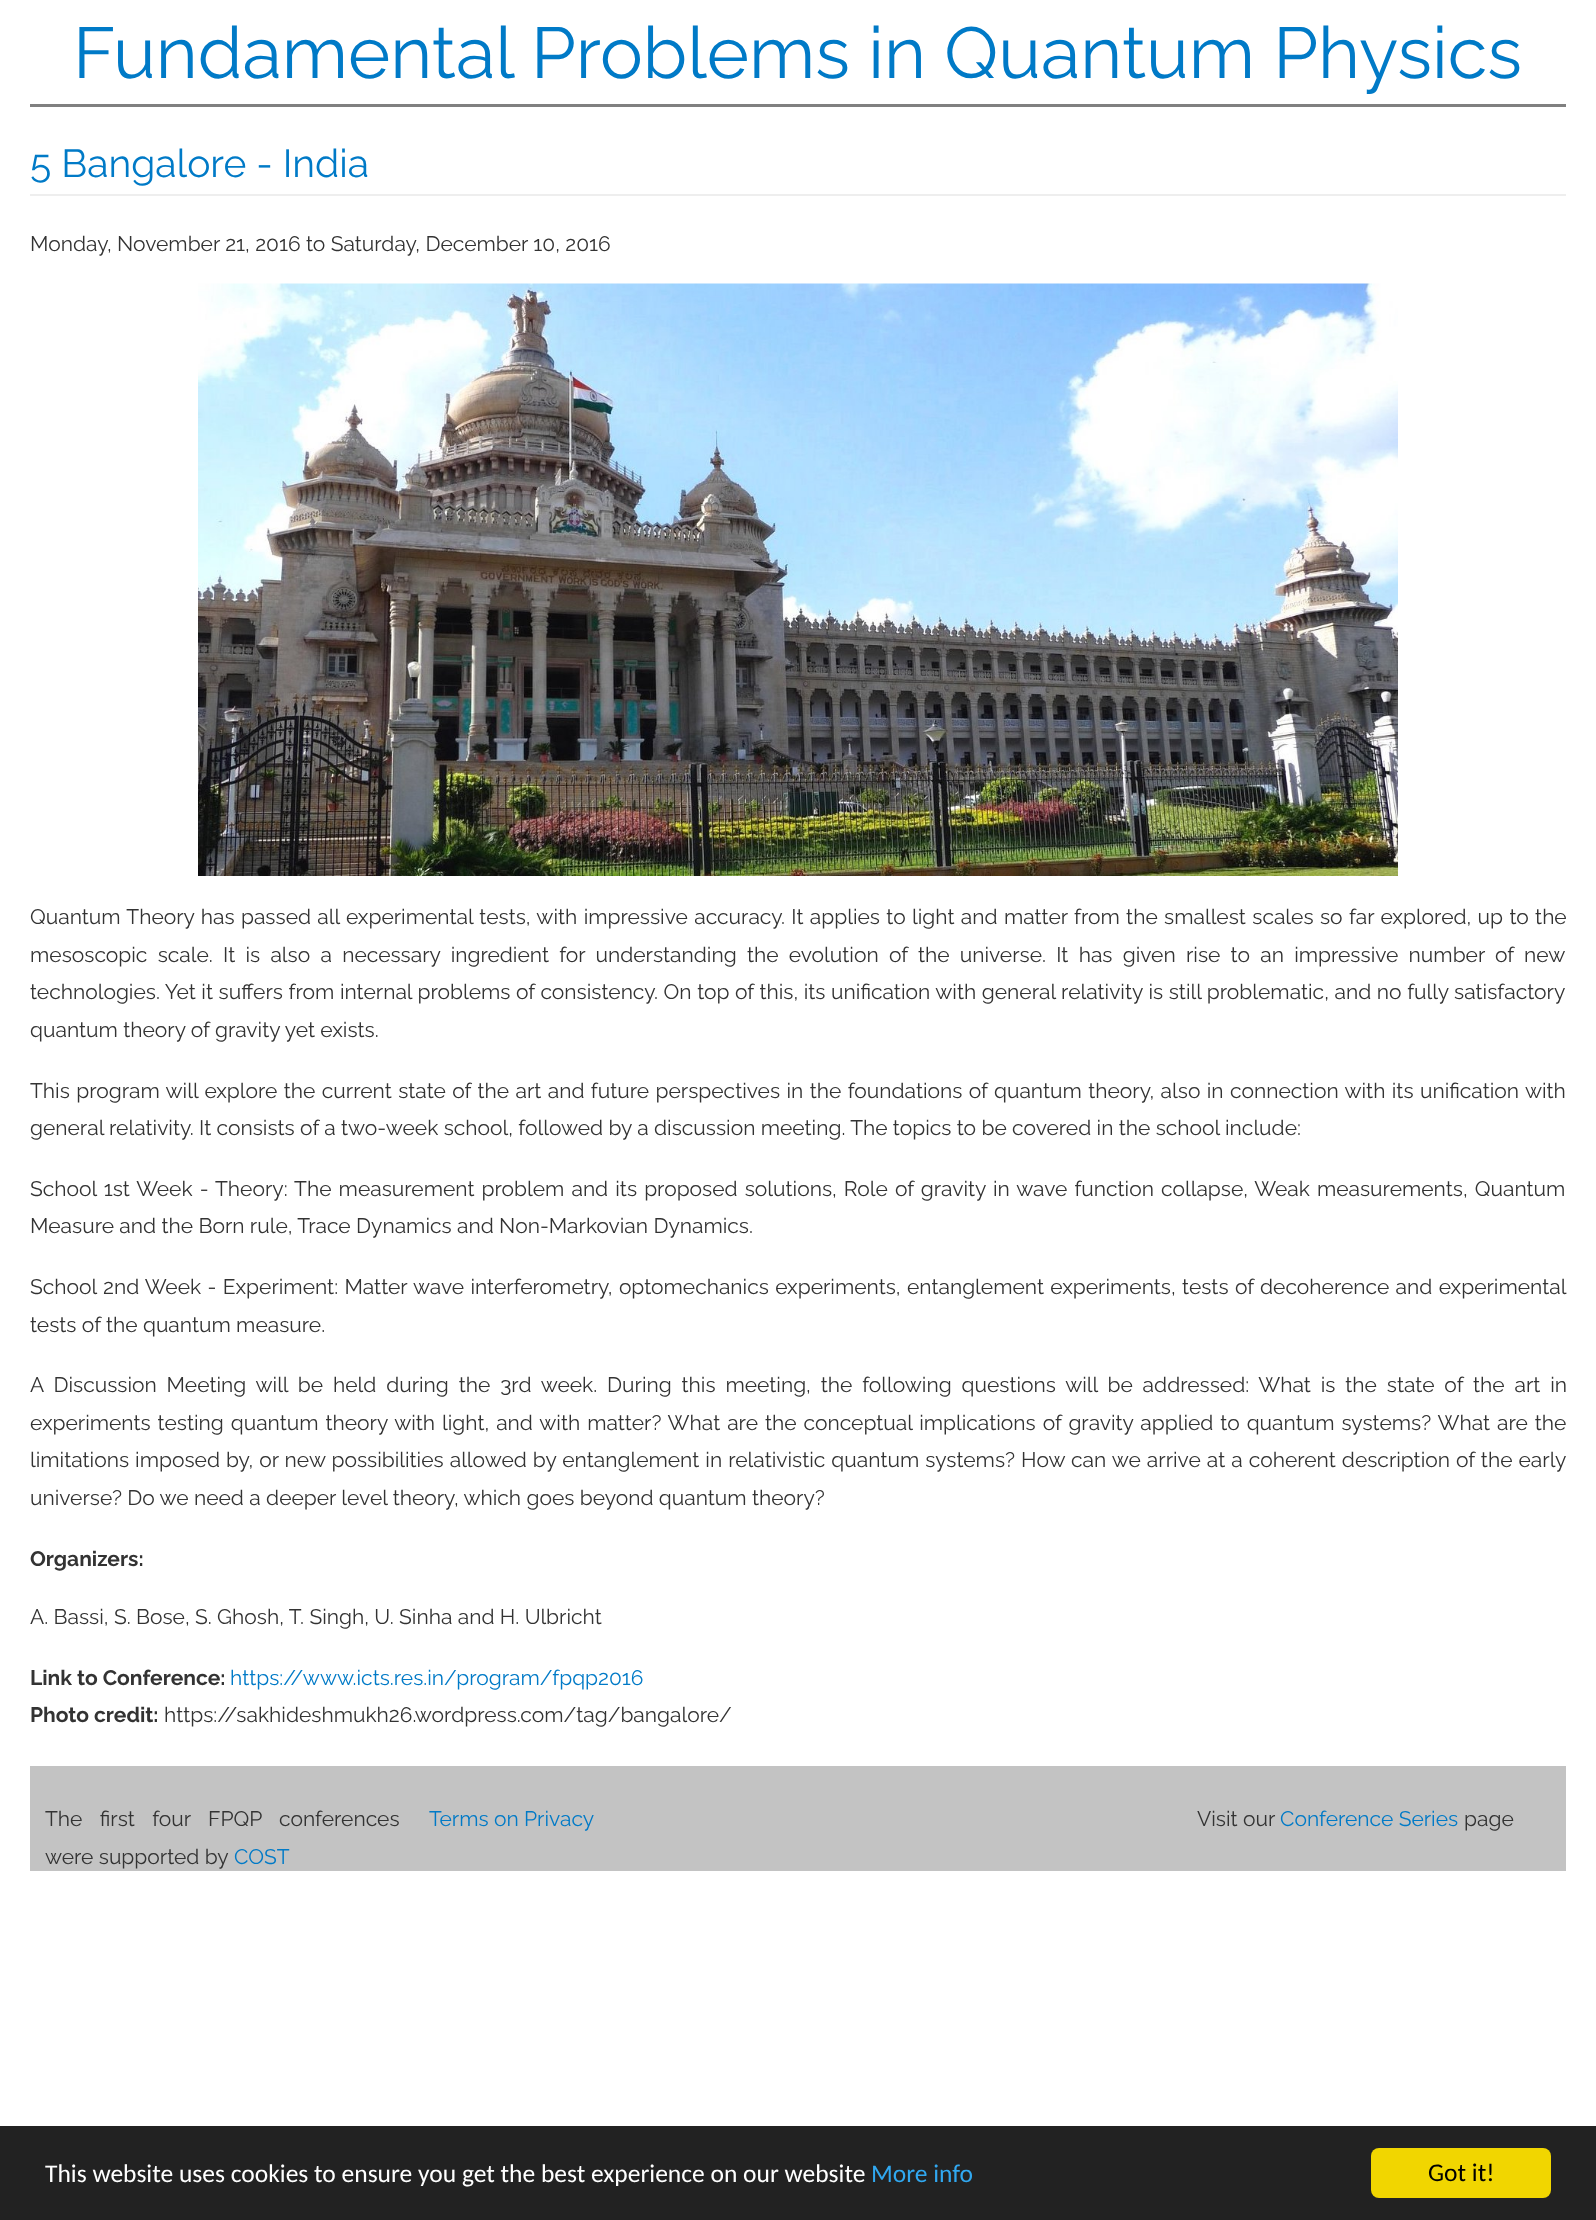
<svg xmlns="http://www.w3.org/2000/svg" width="1596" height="2220">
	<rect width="100%" height="100%" fill="#FFFFFF" />
	<rect x="30" y="104" width="1536" height="3" fill="#808080" />
	<text x="73" y="78" font-family="Raleway" font-size="72" fill="#007AC7">Fundamental Problems in Quantum Physics</text>
	<rect x="30" y="194" width="1536" height="2" fill="#EEEEEE" />
	<text x="30" y="177" font-family="Raleway" font-size="39" fill="#007AC7">5 Bangalore - India</text>
	<text x="30" y="251" font-family="Raleway" font-size="21" fill="#333333">Monday, November 21, 2016 to Saturday, December 10, 2016</text>
	<image x="198" y="283" width="1200" height="593" href="assets/img1.png" />
	<g font-family="Raleway" font-size="21" fill="#333333">
		<text x="30" y="924" word-spacing="1">Quantum Theory has passed all experimental tests, with impressive accuracy. It applies to light and matter from the smallest scales so far explored, up to the</text>
		<text x="30" y="962" word-spacing="4.9">mesoscopic scale. It is also a necessary ingredient for understanding the evolution of the universe. It has given rise to an impressive number of new</text>
		<text x="30" y="999" word-spacing="0.25">technologies. Yet it suffers from internal problems of consistency. On top of this, its unification with general relativity is still problematic, and no fully satisfactory</text>
		<text x="30" y="1037">quantum theory of gravity yet exists.</text>
		<text x="30" y="1098" word-spacing="1.05">This program will explore the current state of the art and future perspectives in the foundations of quantum theory, also in connection with its unification with</text>
		<text x="30" y="1135">general relativity. It consists of a two-week school, followed by a discussion meeting. The topics to be covered in the school include:</text>
		<text x="30" y="1196" word-spacing="1.75">School 1st Week - Theory: The measurement problem and its proposed solutions, Role of gravity in wave function collapse, Weak measurements, Quantum</text>
		<text x="30" y="1233">Measure and the Born rule, Trace Dynamics and Non-Markovian Dynamics.</text>
		<text x="30" y="1294" word-spacing="1">School 2nd Week - Experiment: Matter wave interferometry, optomechanics experiments, entanglement experiments, tests of decoherence and experimental</text>
		<text x="30" y="1332">tests of the quantum measure.</text>
		<text x="30" y="1392" word-spacing="4.5">A Discussion Meeting will be held during the 3rd week. During this meeting, the following questions will be addressed: What is the state of the art in</text>
		<text x="30" y="1430" word-spacing="1.6">experiments testing quantum theory with light, and with matter? What are the conceptual implications of gravity applied to quantum systems? What are the</text>
		<text x="30" y="1467" word-spacing="0.7">limitations imposed by, or new possibilities allowed by entanglement in relativistic quantum systems? How can we arrive at a coherent description of the early</text>
		<text x="30" y="1505">universe? Do we need a deeper level theory, which goes beyond quantum theory?</text>
	</g>
	<text x="30" y="1566" font-family="Raleway" font-size="21" font-weight="700" fill="#333333">Organizers:</text>
	<text x="30" y="1624" font-family="Raleway" font-size="21" fill="#333333">A. Bassi, S. Bose, S. Ghosh, T. Singh, U. Sinha and H. Ulbricht</text>
	<text x="30" y="1685" font-family="Raleway" font-size="21" font-weight="700" fill="#333333">Link to Conference:</text>
	<text x="230" y="1685" font-family="Raleway" font-size="21" fill="#007AC7">https://www.icts.res.in/program/fpqp2016</text>
	<text x="30" y="1722" font-family="Raleway" font-size="21" font-weight="700" fill="#333333">Photo credit:</text>
	<text x="164" y="1722" font-family="Raleway" font-size="21" fill="#333333">https://sakhideshmukh26.wordpress.com/tag/bangalore/</text>
	<rect x="30" y="1766" width="1536" height="105" fill="#C3C3C3" />
	<g font-family="Raleway" font-size="21" fill="#333333">
		<text x="45" y="1826" word-spacing="12">The first four FPQP conferences</text>
		<text x="45" y="1864">were supported by</text>
	</g>
	<g font-family="Raleway" font-size="21" fill="#007AC7">
		<text x="234" y="1864">COST</text>
		<text x="429" y="1826">Terms on Privacy</text>
	</g>
	<text x="1197" y="1826" font-family="Raleway" font-size="21" fill="#333333">Visit our</text>
	<text x="1280" y="1826" font-family="Raleway" font-size="21" fill="#007AC7">Conference Series</text>
	<text x="1464" y="1826" font-family="Raleway" font-size="21" fill="#333333">page</text>
	<rect x="0" y="2126" width="1596" height="94" fill="#222222" />
	<text x="45" y="2182" font-family="Carlito" font-size="25.5" fill="#FFFFFF">This website uses cookies to ensure you get the best experience on our website</text>
	<text x="871" y="2182" font-family="Carlito" font-size="25.5" fill="#31A8F0">More info</text>
	<rect x="1371" y="2148" width="180" height="50" rx="8" fill="#F1D600" />
	<text x="1428" y="2181" font-family="Carlito" font-size="25.5" fill="#000000">Got it!</text>
</svg>
